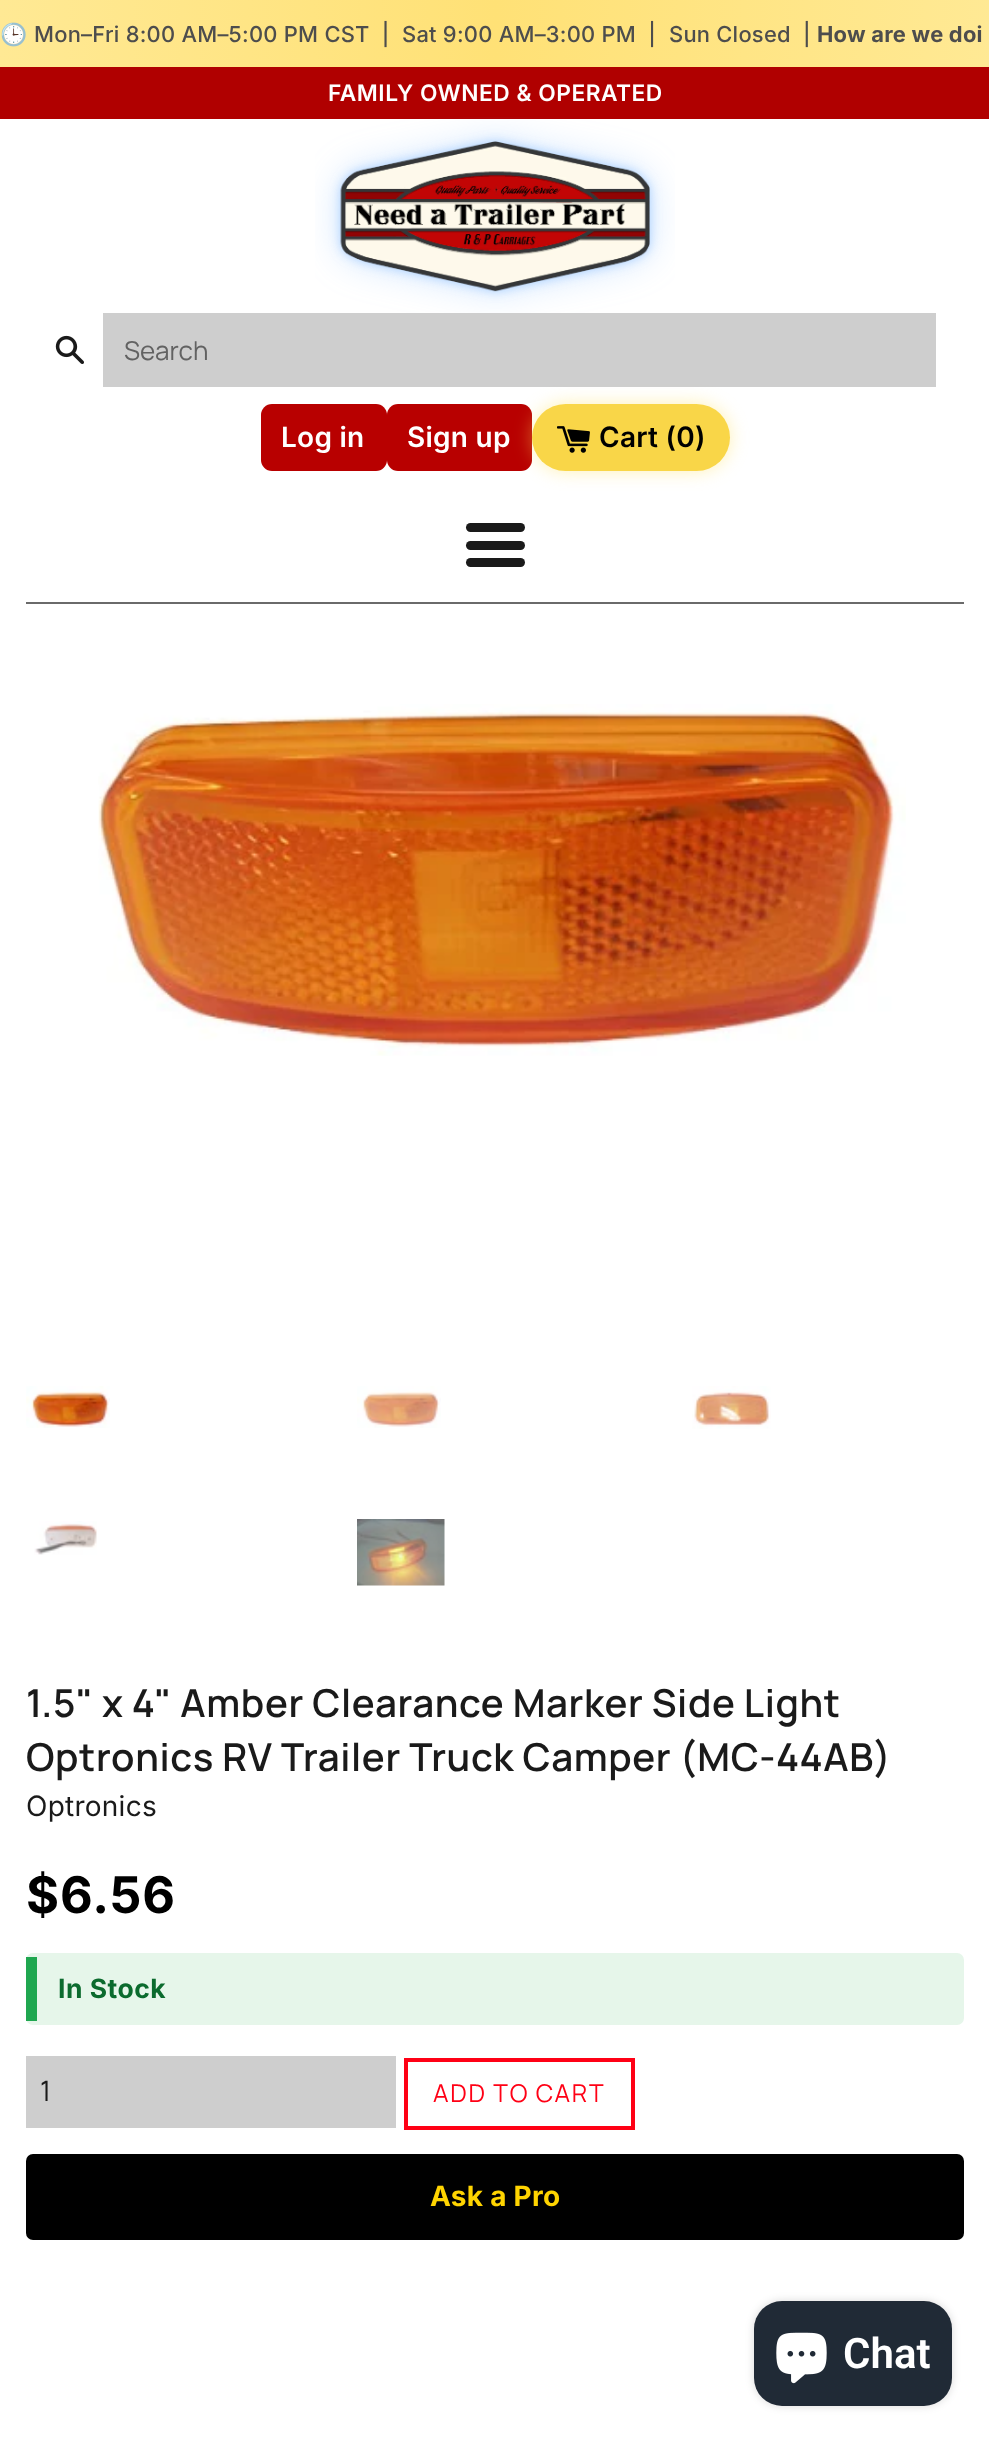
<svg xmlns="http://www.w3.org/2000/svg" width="989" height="2443">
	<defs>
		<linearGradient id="g1" gradientUnits="userSpaceOnUse" x1="0" y1="33" x2="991" y2="33"><stop offset="0" stop-color="#FFE994" /><stop offset="0.5" stop-color="#FFE176" /><stop offset="1" stop-color="#FFE994" /></linearGradient>
	</defs>
	<rect width="100%" height="100%" fill="#FFFFFF" />
	<rect x="0" y="0" width="989" height="67" fill="url(#g1)" />
	<text x="0" y="42" font-family="Noto Color Emoji" font-size="21.9" letter-spacing="0.25" fill="#4D4D4D">🕒</text>
	<g font-family="Inter" font-size="21.9" font-weight="500" letter-spacing="0.25" fill="#4D4D4D">
		<text x="34" y="42" xml:space="preserve">Mon–Fri 8:00 AM–5:00 PM CST  |</text>
		<text x="402" y="42" xml:space="preserve">Sat 9:00 AM–3:00 PM  |</text>
		<text x="669" y="42" xml:space="preserve">Sun Closed  |</text>
	</g>
	<text x="817" y="42" font-family="Inter" font-size="21.9" font-weight="700" letter-spacing="0.25" fill="#4D4D4D">How are we doi</text>
	<rect x="0" y="67" width="989" height="52" fill="#B00000" />
	<text x="328" y="101" font-family="Inter" font-size="22.75" font-weight="600" letter-spacing="0.5" fill="#FFFFFF">FAMILY OWNED &amp; OPERATED</text>
	<image x="315" y="117" width="360" height="196" href="assets/img1.png" />
	<image x="55" y="335" width="29" height="29" href="assets/img2.png" />
	<rect x="103" y="313" width="833" height="74" fill="#CECECE" />
	<text x="124" y="360" font-family="Manrope" font-size="26" fill="#626262">Search</text>
	<rect x="261" y="404" width="126" height="67" rx="11" fill="#B80000" />
	<text x="281" y="447" font-family="Inter" font-size="28" font-weight="600" letter-spacing="0.25" fill="#FFFFFF">Log in</text>
	<rect x="387" y="404" width="145" height="67" rx="11" fill="#B80000" />
	<text x="407" y="447" font-family="Inter" font-size="28" font-weight="600" letter-spacing="0.25" fill="#FFFFFF">Sign up</text>
	<rect x="532" y="404" width="198" height="67" rx="33.5" fill="#FFDF58" fill-opacity="0.45" filter="blur(9px)" />
	<rect x="532" y="404" width="198" height="67" rx="33.5" fill="#F9D648" />
	<image x="557" y="426" width="33" height="27" href="assets/img3.png" />
	<text x="599" y="447" font-family="Inter" font-size="28" font-weight="600" letter-spacing="0.25" fill="#000000">Cart (0)</text>
	<rect x="466" y="523" width="59" height="9" rx="4.5" fill="#1A1A1A" />
	<rect x="466" y="541" width="59" height="9" rx="4.5" fill="#1A1A1A" />
	<rect x="466" y="558" width="59" height="9" rx="4.5" fill="#1A1A1A" />
	<rect x="26" y="602" width="938" height="2" fill="#6A6A6A" />
	<image x="98" y="704" width="808" height="352" href="assets/img4.png" />
	<image x="26" y="1386" width="84" height="42" href="assets/img5.png" />
	<image x="357" y="1386" width="84" height="42" href="assets/img6.png" />
	<image x="692" y="1386" width="79" height="43" href="assets/img7.png" />
	<image x="34" y="1521" width="63" height="34" href="assets/img8.png" />
	<image x="357" y="1519" width="88" height="67" href="assets/img9.png" />
	<g font-family="Manrope" font-size="38.5" font-weight="600" letter-spacing="0.6" fill="#1A1A1A">
		<text x="26" y="1717">1.5" x 4" Amber Clearance Marker Side Light</text>
		<text x="26" y="1771">Optronics RV Trailer Truck Camper (MC-44AB)</text>
	</g>
	<text x="26" y="1816" font-family="Inter" font-size="28" letter-spacing="0.25" fill="#1A1A1A">Optronics</text>
	<text x="26" y="1913" font-family="Inter" font-size="50.5" font-weight="700" letter-spacing="1" fill="#000000">$6.56</text>
	<rect x="26" y="1953" width="938" height="72" rx="7" fill="#E6F6EA" />
	<rect x="26" y="1957" width="11" height="64" fill="#1FA750" />
	<text x="58" y="1998" font-family="Inter" font-size="26.5" font-weight="700" letter-spacing="0.5" fill="#0B6B2E">In Stock</text>
	<rect x="26" y="2056" width="370" height="72" fill="#CECECE" />
	<text x="40" y="2101" font-family="Manrope" font-size="28" fill="#1A1A1A">1</text>
	<rect x="406" y="2060" width="227" height="68" fill="none" stroke="#FF0015" stroke-width="4" />
	<text x="433" y="2102" font-family="Manrope" font-size="24.5" letter-spacing="1.75" fill="#FF0015">ADD TO CART</text>
	<rect x="26" y="2154" width="938" height="86" rx="7" fill="#000000" />
	<text x="430" y="2206" font-family="Inter" font-size="28" font-weight="700" letter-spacing="0.25" fill="#FFD400">Ask a Pro</text>
	<rect x="754" y="2301" width="198" height="105" rx="28" fill="#000000" fill-opacity="0.15" filter="blur(4.5px)" />
	<rect x="754" y="2301" width="198" height="105" rx="28" fill="#202A36" />
	<image x="776" y="2332" width="51" height="52" href="assets/img10.png" />
	<text x="843" y="2368" font-family="Roboto" font-size="42" font-weight="600" fill="#FFFFFF">Chat</text>
</svg>
